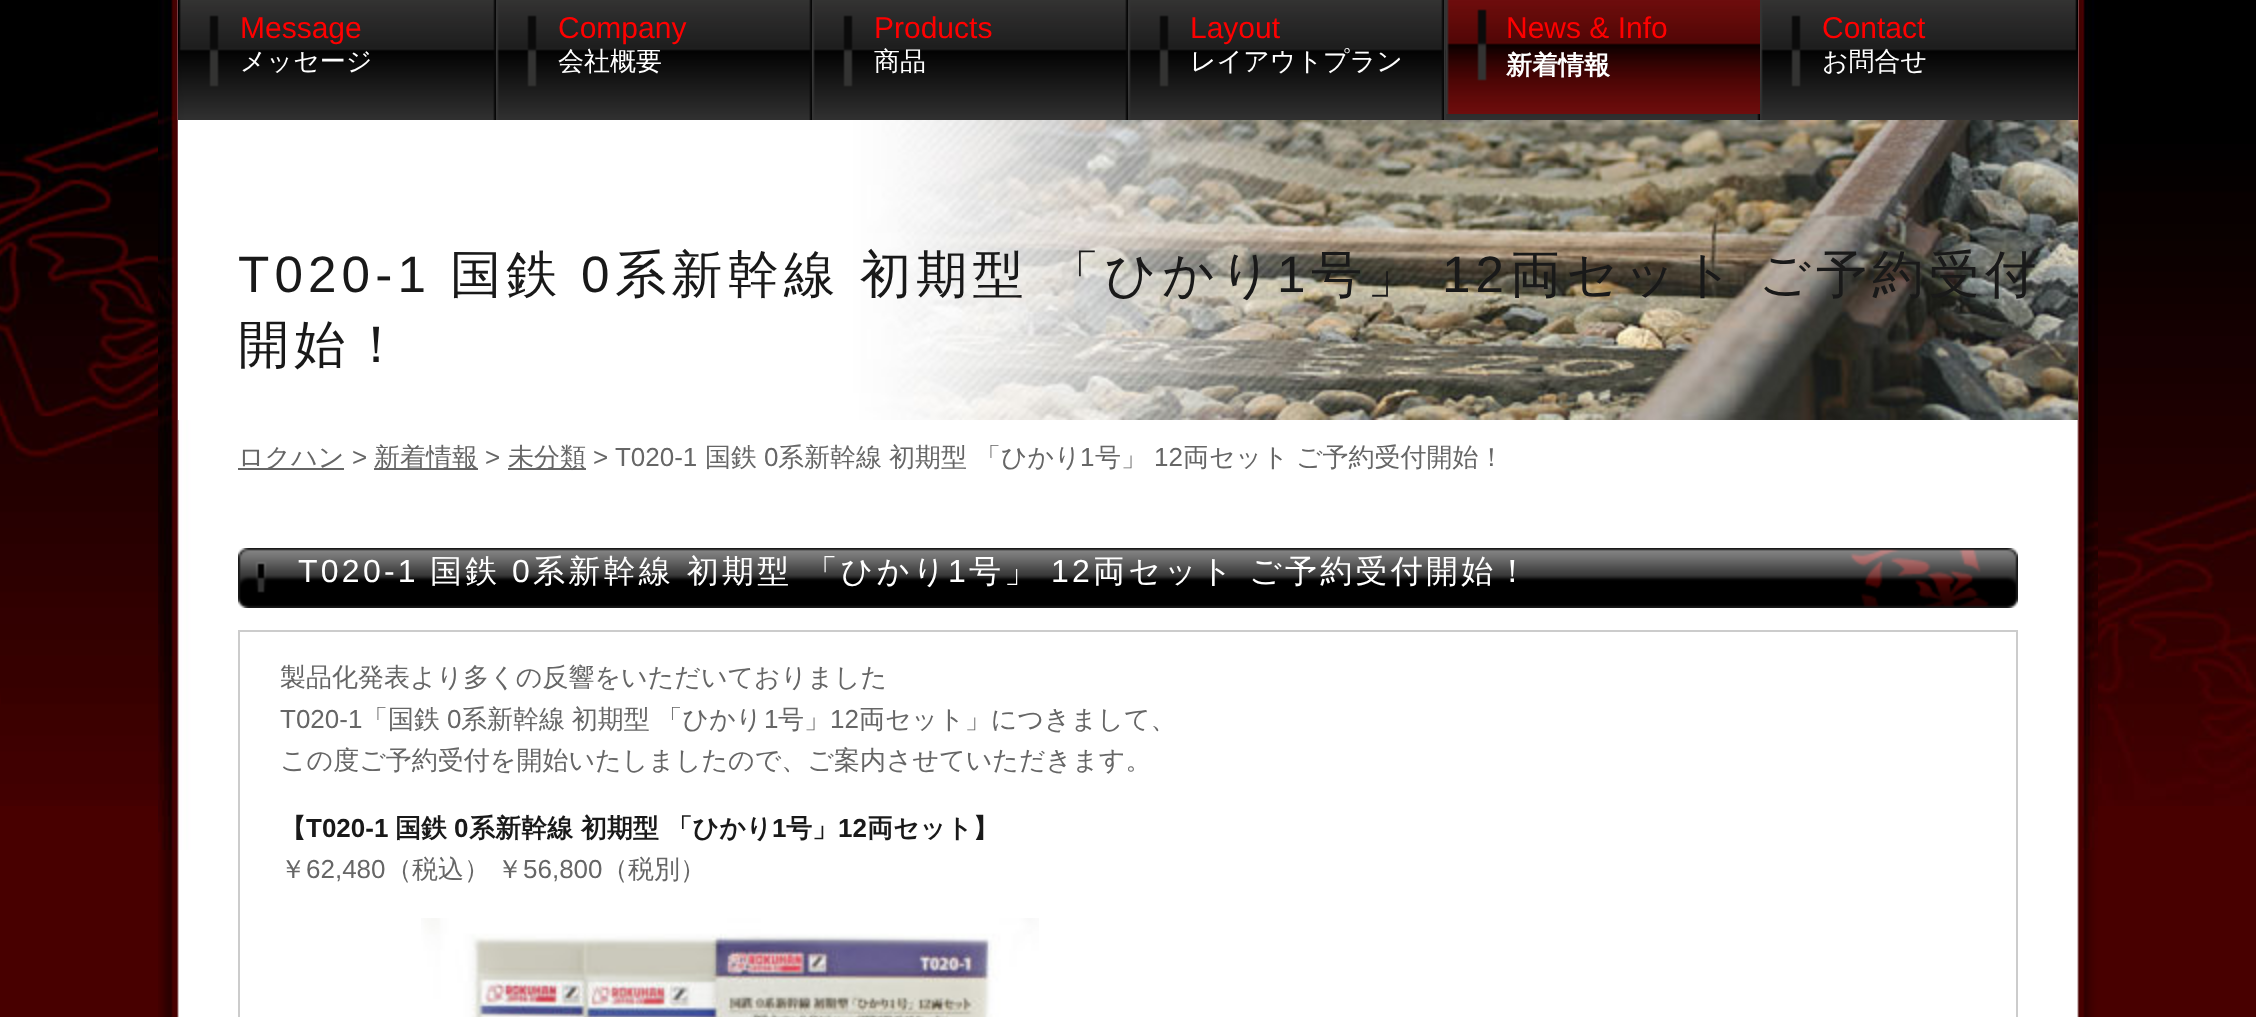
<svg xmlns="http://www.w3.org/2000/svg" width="2256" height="1017">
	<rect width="100%" height="100%" fill="#480000" />
	<image x="0" y="0" width="2256" height="806" href="assets/img1.png" />
	<image x="158" y="850" width="1940" height="167" href="assets/img2.png" />
	<image x="158" y="0" width="1940" height="850" href="assets/img3.png" />
	<image x="178" y="0" width="318" height="120" href="assets/img4.png" />
	<text x="240" y="38" font-family="Liberation Sans" font-size="30" fill="#FF0000">Message</text>
	<text x="240" y="70" font-family="WenQuanYi Zen Hei" font-size="26" font-weight="500" fill="#FFFFFF">メッセージ</text>
	<image x="496" y="0" width="316" height="120" href="assets/img5.png" />
	<text x="558" y="38" font-family="Liberation Sans" font-size="30" fill="#FF0000">Company</text>
	<text x="558" y="70" font-family="WenQuanYi Zen Hei" font-size="26" font-weight="500" fill="#FFFFFF">会社概要</text>
	<image x="812" y="0" width="316" height="120" href="assets/img5.png" />
	<text x="874" y="38" font-family="Liberation Sans" font-size="30" fill="#FF0000">Products</text>
	<text x="874" y="70" font-family="WenQuanYi Zen Hei" font-size="26" font-weight="500" fill="#FFFFFF">商品</text>
	<image x="1128" y="0" width="316" height="120" href="assets/img5.png" />
	<text x="1190" y="38" font-family="Liberation Sans" font-size="30" fill="#FF0000">Layout</text>
	<text x="1190" y="70" font-family="WenQuanYi Zen Hei" font-size="26" font-weight="500" fill="#FFFFFF">レイアウトプラン</text>
	<image x="1444" y="0" width="316" height="120" href="assets/img5.png" />
	<image x="1446" y="0" width="314" height="114" href="assets/img6.png" />
	<text x="1506" y="38" font-family="Liberation Sans" font-size="30" fill="#FF0000">News &amp; Info</text>
	<text x="1506" y="74" font-family="WenQuanYi Zen Hei" font-size="26" font-weight="700" fill="#FFFFFF">新着情報</text>
	<image x="1760" y="0" width="318" height="120" href="assets/img7.png" />
	<text x="1822" y="38" font-family="Liberation Sans" font-size="30" fill="#FF0000">Contact</text>
	<text x="1822" y="70" font-family="WenQuanYi Zen Hei" font-size="26" font-weight="500" fill="#FFFFFF">お問合せ</text>
	<image x="178" y="120" width="1900" height="300" href="assets/img8.png" />
	<text x="238" y="292" font-family="Liberation Sans" font-size="51.25" letter-spacing="5.1" fill="#191919">T020-1</text>
	<text x="450" y="292" font-family="WenQuanYi Zen Hei" font-size="51.25" font-weight="500" letter-spacing="5.1" fill="#191919">国鉄</text>
	<text x="581" y="292" font-family="Liberation Sans" font-size="51.25" letter-spacing="5.1" fill="#191919">0</text>
	<text x="615" y="292" word-spacing="-1" font-family="WenQuanYi Zen Hei" font-size="51.25" font-weight="500" letter-spacing="5.1" fill="#191919">系新幹線 初期型 「ひかり</text>
	<text x="1277" y="292" font-family="Liberation Sans" font-size="51.25" letter-spacing="5.1" fill="#191919">1</text>
	<text x="1311" y="292" font-family="WenQuanYi Zen Hei" font-size="51.25" font-weight="500" letter-spacing="5.1" fill="#191919">号」</text>
	<text x="1442" y="292" font-family="Liberation Sans" font-size="51.25" letter-spacing="5.1" fill="#191919">12</text>
	<g font-family="WenQuanYi Zen Hei" font-size="51.25" font-weight="500" letter-spacing="5.1" fill="#191919">
		<text x="1510" y="292" word-spacing="-1">両セット ご予約受付</text>
		<text x="238" y="362">開始！</text>
	</g>
	<rect x="238" y="468" width="106" height="2" fill="#666666" />
	<text x="238" y="466" font-family="WenQuanYi Zen Hei" font-size="26" font-weight="500" fill="#666666">ロクハン</text>
	<text x="352" y="466" font-family="Liberation Sans" font-size="26" fill="#666666">&gt;</text>
	<rect x="374" y="468" width="104" height="2" fill="#666666" />
	<text x="374" y="466" font-family="WenQuanYi Zen Hei" font-size="26" font-weight="500" fill="#666666">新着情報</text>
	<text x="485" y="466" font-family="Liberation Sans" font-size="26" fill="#666666">&gt;</text>
	<rect x="508" y="468" width="78" height="2" fill="#666666" />
	<text x="508" y="466" font-family="WenQuanYi Zen Hei" font-size="26" font-weight="500" fill="#666666">未分類</text>
	<text x="593" y="466" font-family="Liberation Sans" font-size="26" fill="#666666">&gt; T020-1</text>
	<text x="705" y="466" font-family="WenQuanYi Zen Hei" font-size="26" font-weight="500" fill="#666666">国鉄</text>
	<text x="764" y="466" font-family="Liberation Sans" font-size="26" fill="#666666">0</text>
	<g font-family="WenQuanYi Zen Hei" font-size="26" font-weight="500" fill="#666666">
		<text x="778" y="466">系新幹線</text>
		<text x="889" y="466">初期型</text>
		<text x="975" y="466">「ひかり</text>
	</g>
	<text x="1080" y="466" font-family="Liberation Sans" font-size="26" fill="#666666">1</text>
	<text x="1095" y="466" font-family="WenQuanYi Zen Hei" font-size="26" font-weight="500" fill="#666666">号」</text>
	<text x="1154" y="466" font-family="Liberation Sans" font-size="26" fill="#666666">12</text>
	<g font-family="WenQuanYi Zen Hei" font-size="26" font-weight="500" fill="#666666">
		<text x="1183" y="466">両セット</text>
		<text x="1296" y="466">ご予約受付開始！</text>
	</g>
	<image x="238" y="548" width="1780" height="60" href="assets/img9.png" />
	<text x="298" y="582" font-family="Liberation Sans" font-size="32" letter-spacing="3.25" fill="#FFFFFF">T020-1</text>
	<text x="430" y="582" font-family="WenQuanYi Zen Hei" font-size="32" font-weight="500" letter-spacing="3.25" fill="#FFFFFF">国鉄</text>
	<text x="512" y="582" font-family="Liberation Sans" font-size="32" letter-spacing="3.25" fill="#FFFFFF">0</text>
	<text x="533" y="582" font-family="WenQuanYi Zen Hei" font-size="32" font-weight="500" letter-spacing="3.25" fill="#FFFFFF">系新幹線 初期型 「ひかり</text>
	<text x="948" y="582" font-family="Liberation Sans" font-size="32" letter-spacing="3.25" fill="#FFFFFF">1</text>
	<text x="969" y="582" font-family="WenQuanYi Zen Hei" font-size="32" font-weight="500" letter-spacing="3.25" fill="#FFFFFF">号」</text>
	<text x="1051" y="582" font-family="Liberation Sans" font-size="32" letter-spacing="3.25" fill="#FFFFFF">12</text>
	<text x="1093" y="582" font-family="WenQuanYi Zen Hei" font-size="32" font-weight="500" letter-spacing="3.25" fill="#FFFFFF">両セット ご予約受付開始！</text>
	<rect x="239" y="631" width="1778" height="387" fill="none" stroke="#CCCCCC" stroke-width="2" />
	<text x="280" y="686" font-family="WenQuanYi Zen Hei" font-size="26" font-weight="500" fill="#666666">製品化発表より多くの反響をいただいておりました</text>
	<text x="280" y="728" font-family="Liberation Sans" font-size="26" fill="#666666">T020-1</text>
	<text x="362" y="728" font-family="WenQuanYi Zen Hei" font-size="26" font-weight="500" fill="#666666">「国鉄</text>
	<text x="447" y="728" font-family="Liberation Sans" font-size="26" fill="#666666">0</text>
	<text x="461" y="728" word-spacing="-1" font-family="WenQuanYi Zen Hei" font-size="26" font-weight="500" fill="#666666">系新幹線 初期型 「ひかり</text>
	<text x="764" y="728" font-family="Liberation Sans" font-size="26" fill="#666666">1</text>
	<text x="778" y="728" font-family="WenQuanYi Zen Hei" font-size="26" font-weight="500" fill="#666666">号」</text>
	<text x="830" y="728" font-family="Liberation Sans" font-size="26" fill="#666666">12</text>
	<g font-family="WenQuanYi Zen Hei" font-size="26" font-weight="500" fill="#666666">
		<text x="859" y="728">両セット」につきまして、</text>
		<text x="280" y="769">この度ご予約受付を開始いたしましたので、ご案内させていただきます。</text>
	</g>
	<text x="280" y="837" font-family="WenQuanYi Zen Hei" font-size="26" font-weight="700" fill="#191919">【</text>
	<text x="306" y="837" font-family="Liberation Sans" font-size="26" font-weight="700" fill="#191919">T020-1</text>
	<text x="395" y="837" font-family="WenQuanYi Zen Hei" font-size="26" font-weight="700" fill="#191919">国鉄</text>
	<text x="454" y="837" font-family="Liberation Sans" font-size="26" font-weight="700" fill="#191919">0</text>
	<text x="469" y="837" font-family="WenQuanYi Zen Hei" font-size="26" font-weight="700" fill="#191919">系新幹線 初期型 「ひかり</text>
	<text x="772" y="837" font-family="Liberation Sans" font-size="26" font-weight="700" fill="#191919">1</text>
	<text x="786" y="837" font-family="WenQuanYi Zen Hei" font-size="26" font-weight="700" fill="#191919">号」</text>
	<text x="838" y="837" font-family="Liberation Sans" font-size="26" font-weight="700" fill="#191919">12</text>
	<text x="867" y="837" font-family="WenQuanYi Zen Hei" font-size="26" font-weight="700" fill="#191919">両セット】</text>
	<text x="280" y="878" font-family="WenQuanYi Zen Hei" font-size="26" font-weight="500" fill="#666666">￥</text>
	<text x="306" y="878" font-family="Liberation Sans" font-size="26" fill="#666666">62,480</text>
	<text x="386" y="878" word-spacing="-1" font-family="WenQuanYi Zen Hei" font-size="26" font-weight="500" fill="#666666">（税込） ￥</text>
	<text x="523" y="878" font-family="Liberation Sans" font-size="26" fill="#666666">56,800</text>
	<text x="602" y="878" font-family="WenQuanYi Zen Hei" font-size="26" font-weight="500" fill="#666666">（税別）</text>
	<image x="421" y="918" width="618" height="99" href="assets/img10.png" />
</svg>
